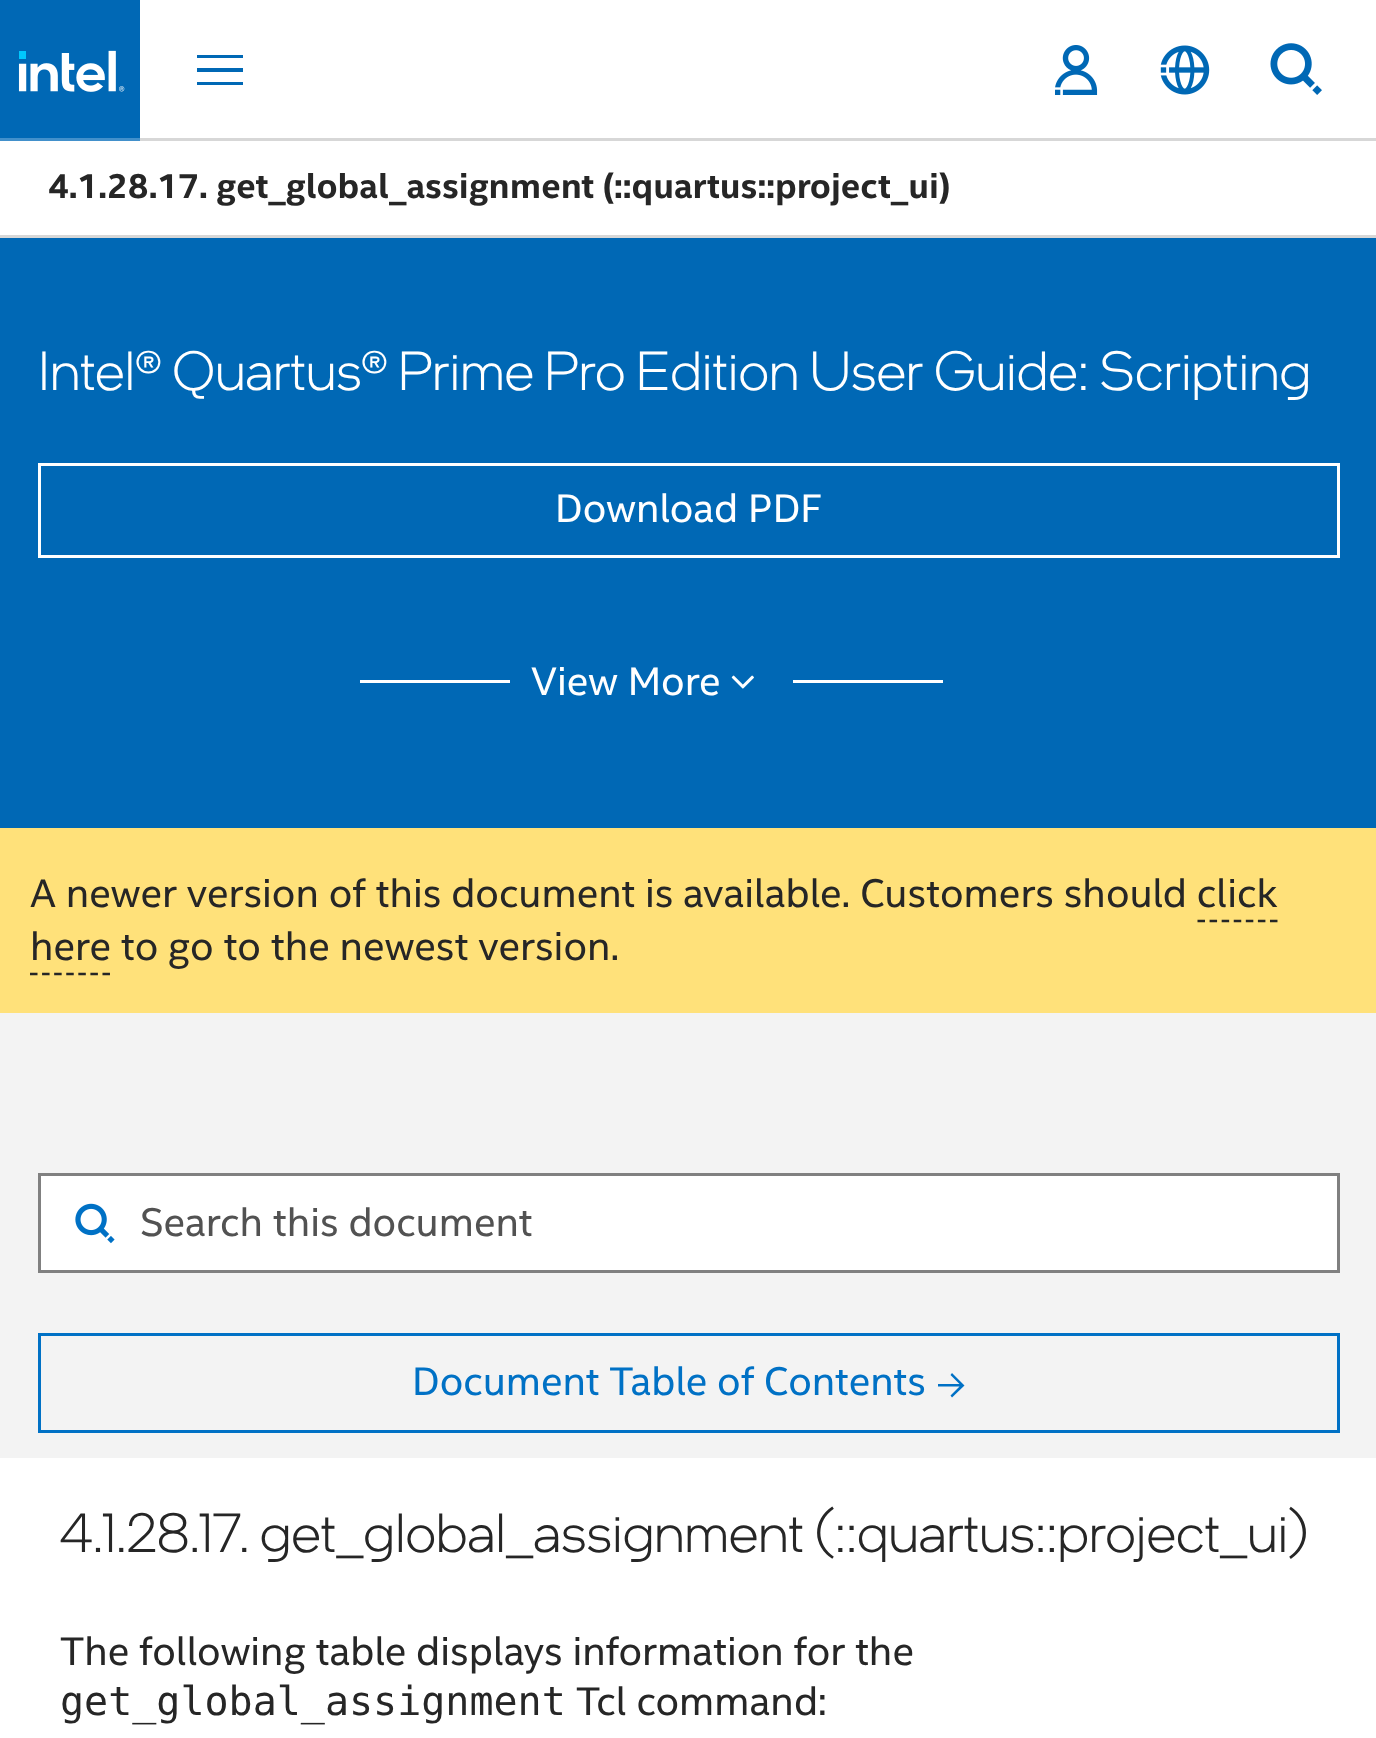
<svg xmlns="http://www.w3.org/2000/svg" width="1376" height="1738">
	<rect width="100%" height="100%" fill="#FFFFFF" />
	<rect x="140" y="138" width="1236" height="3" fill="#D7D7D7" />
	<rect x="0" y="0" width="140" height="138" fill="#0068B5" />
	<image x="18" y="50" width="107" height="42" href="assets/img1.png" />
	<rect x="0" y="138" width="140" height="3" fill="#4290CB" />
	<path d="M243 55V58H197V55ZM197 72H243V68H197ZM197 85H243V82H197Z" fill="#0068B5" />
	<image x="1055" y="45" width="43" height="50" href="assets/img2.png" />
	<image x="1160" y="45" width="50" height="50" href="assets/img3.png" />
	<image x="1270" y="43" width="52" height="52" href="assets/img4.png" />
	<rect x="0" y="235" width="1376" height="3" fill="#D7D7D7" />
	<text x="48" y="198" font-family="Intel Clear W" font-size="35" font-weight="700" fill="#262626">4.1.28.17. get_global_assignment (::quartus::project_ui)</text>
	<rect x="0" y="238" width="1376" height="590" fill="#0068B5" />
	<text x="38" y="390" font-family="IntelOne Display" font-size="55" font-weight="300" fill="#FFFFFF">Intel® Quartus® Prime Pro Edition User Guide: Scripting</text>
	<rect x="39.5" y="464.5" width="1299" height="92" fill="none" stroke="#FFFFFF" stroke-width="3" />
	<text x="555" y="522" font-family="Intel Clear W" font-size="40" fill="#FFFFFF">Download PDF</text>
	<rect x="360" y="680" width="150" height="3" fill="#FFFFFF" />
	<text x="531" y="695" font-family="Intel Clear W" font-size="40" fill="#FFFFFF">View More</text>
	<image x="731" y="675" width="23" height="14" href="assets/img5.png" />
	<rect x="793" y="680" width="150" height="3" fill="#FFFFFF" />
	<rect x="0" y="828" width="1376" height="185" fill="#FFE17A" />
	<g font-family="Intel Clear W" font-size="40" fill="#262626">
		<text x="30" y="907">A newer version of this document is available. Customers should click</text>
		<text x="30" y="960">here to go to the newest version.</text>
	</g>
	<path d="M1197.5 921H1277.5" fill="none" stroke="#262626" stroke-width="2.5" stroke-dasharray="7.5 4.58" />
	<path d="M30 974H110" fill="none" stroke="#262626" stroke-width="2.5" stroke-dasharray="7.5 4.58" />
	<rect x="0" y="1013" width="1376" height="445" fill="#F3F3F3" />
	<rect x="39.5" y="1174.5" width="1299" height="97" fill="#FFFFFF" stroke="#808080" stroke-width="3" />
	<image x="75" y="1203" width="40" height="41" href="assets/img6.png" />
	<text x="140" y="1236" font-family="Intel Clear W" font-size="40" fill="#525252">Search this document</text>
	<rect x="39.5" y="1334.5" width="1299" height="97" fill="none" stroke="#0071C5" stroke-width="3" />
	<text x="412" y="1395" font-family="Intel Clear W" font-size="40" fill="#0071C5">Document Table of Contents</text>
	<path d="M950.5 1375L952 1373L964.5 1385.5L952 1397.5L950.5 1395.5L959.5 1386.5H938V1384H959.5Z" fill="#0071C5" />
	<text x="60" y="1552" font-family="IntelOne Display" font-size="55" font-weight="300" fill="#262626">4.1.28.17. get_global_assignment (::quartus::project_ui)</text>
	<text x="60" y="1665" font-family="Intel Clear W" font-size="40" fill="#262626">The following table displays information for the</text>
	<text x="60" y="1715" font-family="DejaVu Sans Mono" font-size="40" fill="#262626">get_global_assignment</text>
	<text x="576" y="1715" font-family="Intel Clear W" font-size="40" fill="#262626">Tcl command:</text>
</svg>
